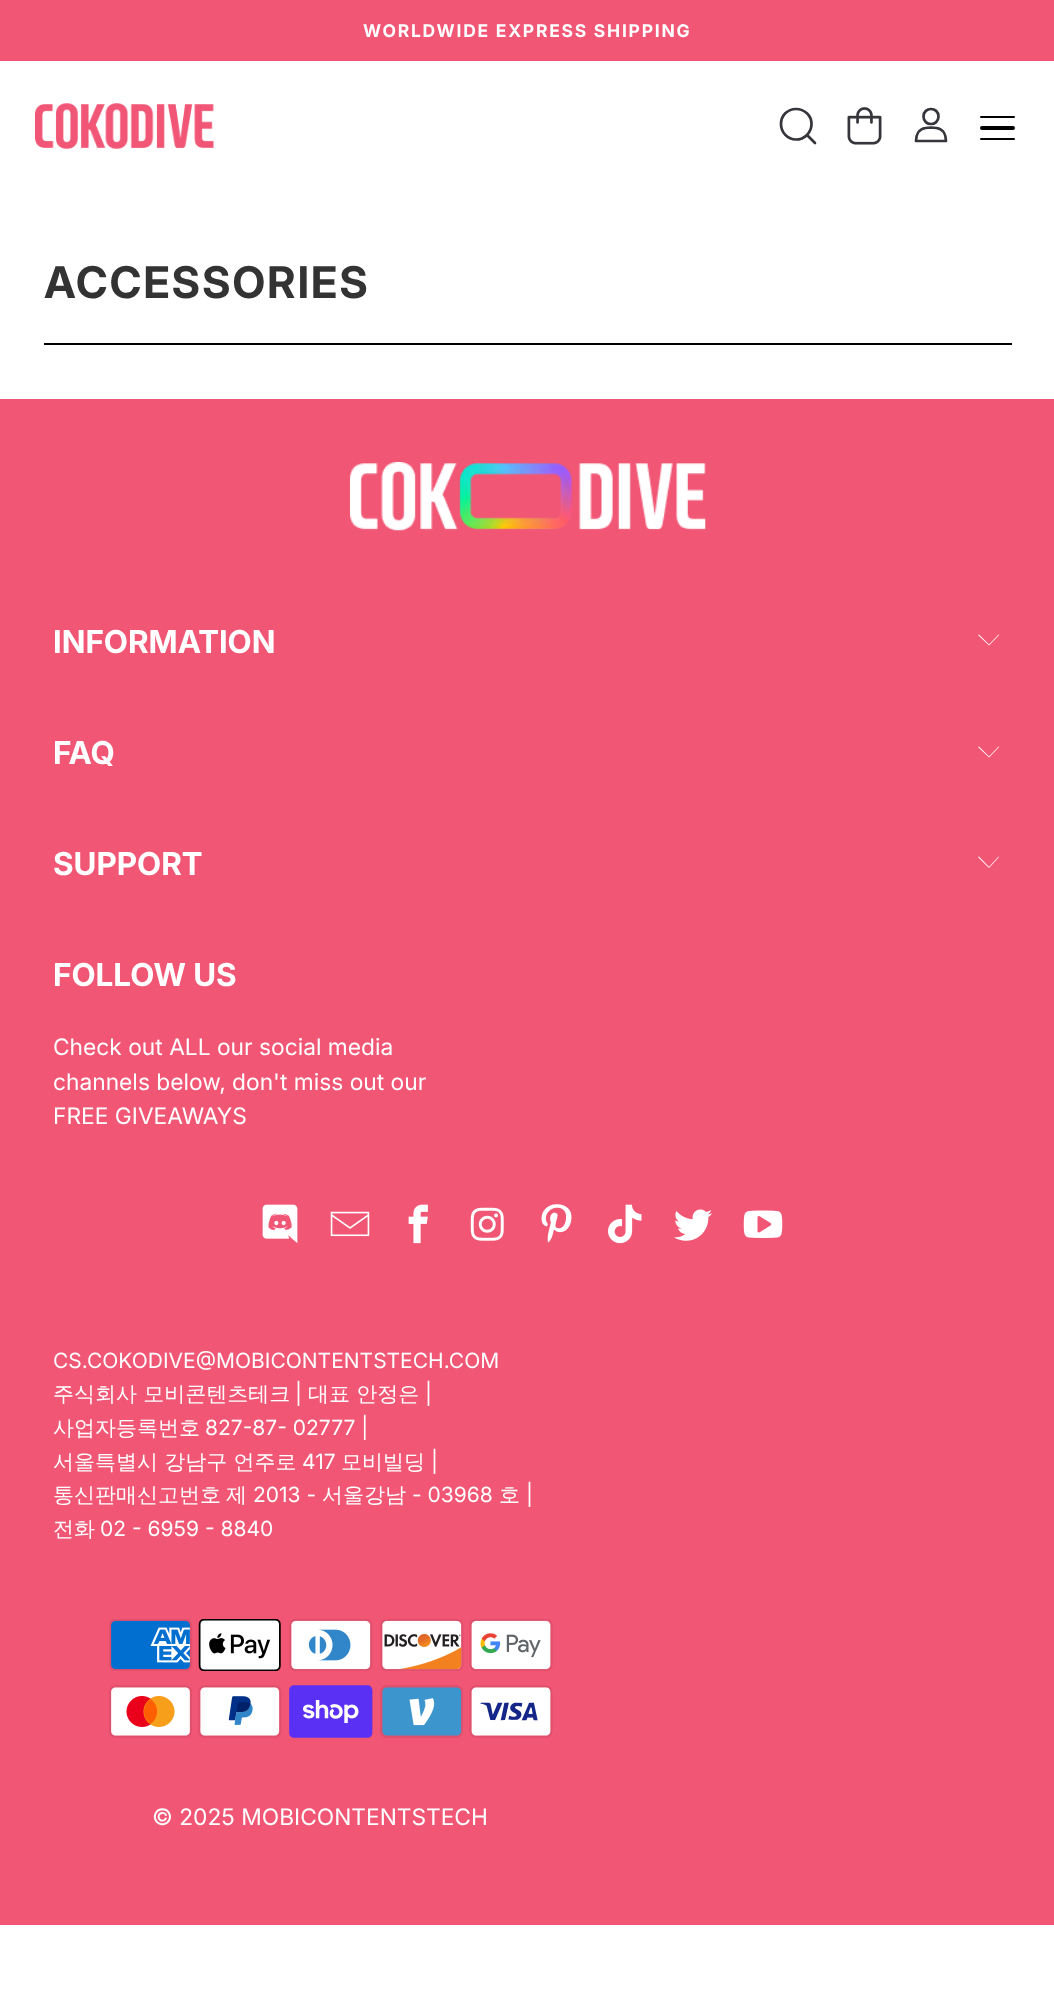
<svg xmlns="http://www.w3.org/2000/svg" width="1054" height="2001">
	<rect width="100%" height="100%" fill="#FFFFFF" />
	<rect x="0" y="0" width="1054" height="61" fill="#F15675" />
	<text x="363" y="37" font-family="'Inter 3'" font-size="17.5" font-weight="700" letter-spacing="1.75" fill="#FFFFFF">WORLDWIDE EXPRESS SHIPPING</text>
	<image x="35" y="103" width="179" height="46" href="assets/img1.png" />
	<path d="M796 139.5C804.5 139.5 811.5 132.5 811.5 124C811.5 115.5 804.5 109 796 109C787.5 109 781 115.5 781 124C781 132.5 787.5 139.5 796 139.5ZM815 143L807 135" fill="none" stroke="#35353C" stroke-width="2.7" stroke-linecap="round" stroke-linejoin="round" />
	<image x="847" y="107" width="35" height="38" href="assets/img2.png" />
	<path d="M923.5 116.5C923.5 126.5 938.5 126.5 938.5 116.5C938.5 106.5 923.5 106.5 923.5 116.5ZM944.5 141H946C946 135 943.5 129 936.5 128L931 127.5L925.5 128C918.5 129 916 135 916 141Z" fill="none" stroke="#35353C" stroke-width="2.7" stroke-linecap="round" stroke-linejoin="round" />
	<rect x="980" y="116" width="35" height="2" rx="1" fill="#000000" />
	<rect x="980" y="126" width="35" height="4" rx="2" fill="#000000" />
	<rect x="980" y="138" width="35" height="2" rx="1" fill="#000000" />
	<text x="44" y="298" font-family="Inter" font-size="43.75" font-weight="700" letter-spacing="1.75" fill="#333333">ACCESSORIES</text>
	<rect x="44" y="343" width="968" height="2" fill="#000000" />
	<rect x="0" y="399" width="1054" height="1526" fill="#F15675" />
	<image x="350" y="462" width="356" height="69" href="assets/img3.png" />
	<text x="53" y="653" font-family="'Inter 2'" font-size="31.5" font-weight="700" fill="#FFFFFF">INFORMATION</text>
	<path d="M989 645.5L978 635L979 634.5L989 644.5L998.5 634.5L999 635Z" fill="#FFFFFF" />
	<text x="53" y="764" font-family="'Inter 2'" font-size="31.5" font-weight="700" fill="#FFFFFF">FAQ</text>
	<path d="M989 757.5L978 747L979 746.5L989 756.5L998.5 746.5L999 747Z" fill="#FFFFFF" />
	<text x="53" y="875" font-family="'Inter 2'" font-size="31.5" font-weight="700" fill="#FFFFFF">SUPPORT</text>
	<path d="M989 868L978 857L979 856.5L989 867L998.5 856.5L999 857Z" fill="#FFFFFF" />
	<text x="53" y="986" font-family="'Inter 2'" font-size="31.5" font-weight="700" fill="#FFFFFF">FOLLOW US</text>
	<g font-family="Inter" font-size="22.75" fill="#FFFFFF">
		<text x="53" y="1055">Check out ALL our social media</text>
		<text x="53" y="1090">channels below, don't miss out our</text>
		<text x="53" y="1124">FREE GIVEAWAYS</text>
	</g>
	<image x="262" y="1204" width="36" height="39" href="assets/img4.png" />
	<image x="330" y="1211" width="40" height="26" href="assets/img5.png" />
	<image x="408" y="1204" width="20" height="40" href="assets/img6.png" />
	<image x="470" y="1207" width="34" height="34" href="assets/img7.png" />
	<image x="541" y="1204" width="31" height="39" href="assets/img8.png" />
	<image x="608" y="1204" width="34" height="40" href="assets/img9.png" />
	<image x="674" y="1209" width="39" height="32" href="assets/img10.png" />
	<image x="743" y="1210" width="40" height="28" href="assets/img11.png" />
	<text x="53" y="1368" font-family="Inter" font-size="21" fill="#FFFFFF">CS.COKODIVE@MOBICONTENTSTECH.COM</text>
	<text x="53" y="1401" font-family="WenQuanYi Zen Hei" font-size="21" font-weight="500" fill="#FFFFFF">주식회사 모비콘텐츠테크</text>
	<text x="295" y="1401" font-family="Inter" font-size="21" fill="#FFFFFF">|</text>
	<text x="308" y="1401" font-family="WenQuanYi Zen Hei" font-size="21" font-weight="500" fill="#FFFFFF">대표 안정은</text>
	<text x="425" y="1401" font-family="Inter" font-size="21" fill="#FFFFFF">|</text>
	<text x="53" y="1435" font-family="WenQuanYi Zen Hei" font-size="21" font-weight="500" fill="#FFFFFF">사업자등록번호</text>
	<text x="205" y="1435" font-family="Inter" font-size="21" fill="#FFFFFF">827-87- 02777 |</text>
	<text x="53" y="1469" font-family="WenQuanYi Zen Hei" font-size="21" font-weight="500" fill="#FFFFFF">서울특별시 강남구 언주로</text>
	<text x="302" y="1469" font-family="Inter" font-size="21" fill="#FFFFFF">417</text>
	<text x="341" y="1469" font-family="WenQuanYi Zen Hei" font-size="21" font-weight="500" fill="#FFFFFF">모비빌딩</text>
	<text x="431" y="1469" font-family="Inter" font-size="21" fill="#FFFFFF">|</text>
	<g font-family="WenQuanYi Zen Hei" font-size="21" font-weight="500" fill="#FFFFFF">
		<text x="53" y="1502">통신판매신고번호</text>
		<text x="226" y="1502">제</text>
	</g>
	<text x="253" y="1502" font-family="Inter" font-size="21" fill="#FFFFFF">2013 -</text>
	<text x="322" y="1502" font-family="WenQuanYi Zen Hei" font-size="21" font-weight="500" fill="#FFFFFF">서울강남</text>
	<text x="412" y="1502" font-family="Inter" font-size="21" fill="#FFFFFF">- 03968</text>
	<text x="499" y="1502" font-family="WenQuanYi Zen Hei" font-size="21" font-weight="500" fill="#FFFFFF">호</text>
	<text x="526" y="1502" font-family="Inter" font-size="21" fill="#FFFFFF">|</text>
	<text x="53" y="1536" font-family="WenQuanYi Zen Hei" font-size="21" font-weight="500" fill="#FFFFFF">전화</text>
	<text x="100" y="1536" font-family="Inter" font-size="21" fill="#FFFFFF">02 - 6959 - 8840</text>
	<image x="109" y="1619" width="83" height="52" href="assets/img12.png" />
	<image x="198" y="1619" width="83" height="52" href="assets/img13.png" />
	<image x="289" y="1619" width="84" height="52" href="assets/img14.png" />
	<image x="380" y="1619" width="84" height="52" href="assets/img15.png" />
	<image x="469" y="1619" width="84" height="52" href="assets/img16.png" />
	<image x="109" y="1685" width="83" height="53" href="assets/img17.png" />
	<image x="198" y="1685" width="84" height="53" href="assets/img18.png" />
	<image x="289" y="1685" width="84" height="53" href="assets/img19.png" />
	<image x="380" y="1685" width="83" height="53" href="assets/img20.png" />
	<image x="469" y="1685" width="84" height="53" href="assets/img21.png" />
	<text x="152" y="1825" font-family="Inter" font-size="22.75" fill="#FFFFFF">© 2025 MOBICONTENTSTECH</text>
</svg>
